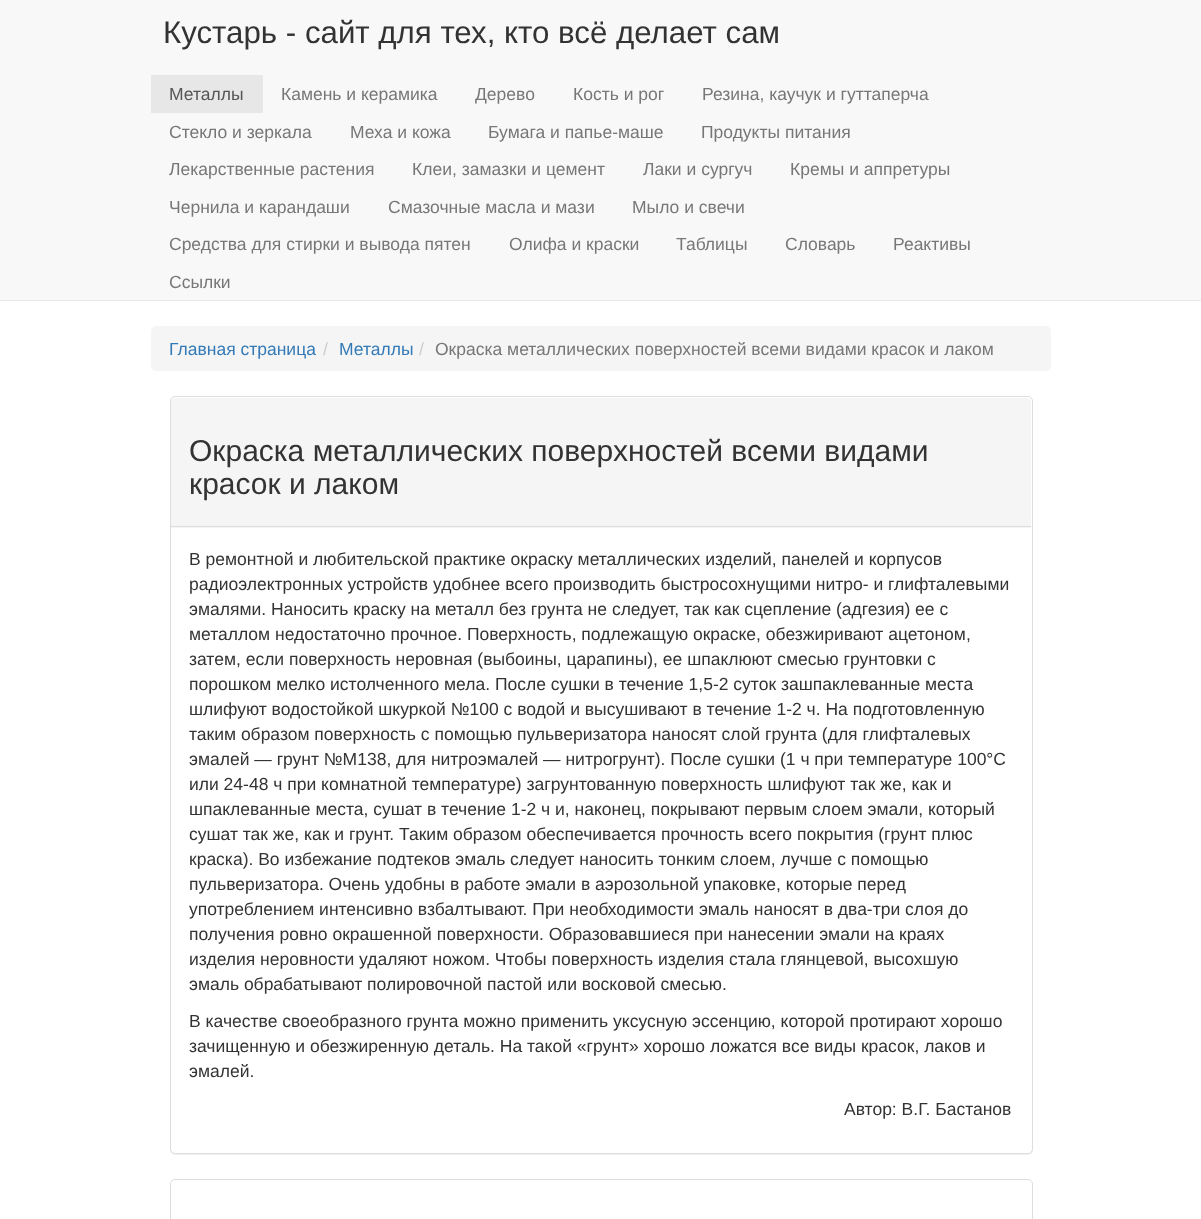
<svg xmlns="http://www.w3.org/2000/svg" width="1201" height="1219">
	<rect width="100%" height="100%" fill="#FFFFFF" />
	<rect x="0" y="0" width="1201" height="300" fill="#F8F8F8" />
	<rect x="0" y="300" width="1201" height="1" fill="#E7E7E7" />
	<text x="163" y="43" font-family="Liberation Sans" font-size="31.25" fill="#333333">Кустарь - сайт для тех, кто всё делает сам</text>
	<rect x="151" y="75" width="112" height="38" fill="#E7E7E7" />
	<text x="169" y="100" font-family="Liberation Sans" font-size="17.5" fill="#555555">Металлы</text>
	<g font-family="Liberation Sans" font-size="17.5" fill="#777777">
		<text x="281" y="100">Камень и керамика</text>
		<text x="475" y="100">Дерево</text>
		<text x="573" y="100">Кость и рог</text>
		<text x="702" y="100">Резина, каучук и гуттаперча</text>
		<text x="169" y="138">Стекло и зеркала</text>
		<text x="350" y="138">Меха и кожа</text>
		<text x="488" y="138">Бумага и папье-маше</text>
		<text x="701" y="138">Продукты питания</text>
		<text x="169" y="175">Лекарственные растения</text>
		<text x="412" y="175">Клеи, замазки и цемент</text>
		<text x="643" y="175">Лаки и сургуч</text>
		<text x="790" y="175">Кремы и аппретуры</text>
		<text x="169" y="213">Чернила и карандаши</text>
		<text x="388" y="213">Смазочные масла и мази</text>
		<text x="632" y="213">Мыло и свечи</text>
		<text x="169" y="250">Средства для стирки и вывода пятен</text>
		<text x="509" y="250">Олифа и краски</text>
		<text x="676" y="250">Таблицы</text>
		<text x="785" y="250">Словарь</text>
		<text x="893" y="250">Реактивы</text>
		<text x="169" y="288">Ссылки</text>
	</g>
	<rect x="151" y="326" width="900" height="45" rx="5" fill="#F5F5F5" />
	<text x="169" y="355" font-family="Liberation Sans" font-size="17.5" fill="#337AB7">Главная страница</text>
	<text x="323" y="355" font-family="Liberation Sans" font-size="17.5" fill="#CCCCCC">/</text>
	<text x="339" y="355" font-family="Liberation Sans" font-size="17.5" fill="#337AB7">Металлы</text>
	<text x="419" y="355" font-family="Liberation Sans" font-size="17.5" fill="#CCCCCC">/</text>
	<text x="435" y="355" font-family="Liberation Sans" font-size="17.5" fill="#777777">Окраска металлических поверхностей всеми видами красок и лаком</text>
	<rect x="170" y="398" width="863" height="757" rx="5" fill="#000000" fill-opacity="0.05" filter="blur(0.5px)" />
	<rect x="170.5" y="396.5" width="862" height="757" rx="4.5" fill="#FFFFFF" stroke="#DDDDDD" />
	<path d="M175 398H1027C1029 398 1031 400 1031 402V528H171V402C171 400 173 398 175 398Z" fill="#F5F5F5" />
	<rect x="171" y="526" width="860" height="1" fill="#DDDDDD" />
	<g font-family="Liberation Sans" font-size="30" fill="#333333">
		<text x="189" y="461">Окраска металлических поверхностей всеми видами</text>
		<text x="189" y="494">красок и лаком</text>
	</g>
	<g font-family="Liberation Sans" font-size="17.5" fill="#333333">
		<text x="189" y="565">В ремонтной и любительской практике окраску металлических изделий, панелей и корпусов</text>
		<text x="189" y="590">радиоэлектронных устройств удобнее всего производить быстросохнущими нитро- и глифталевыми</text>
		<text x="189" y="615">эмалями. Наносить краску на металл без грунта не следует, так как сцепление (адгезия) ее с</text>
		<text x="189" y="640">металлом недостаточно прочное. Поверхность, подлежащую окраске, обезжиривают ацетоном,</text>
		<text x="189" y="665">затем, если поверхность неровная (выбоины, царапины), ее шпаклюют смесью грунтовки с</text>
		<text x="189" y="690">порошком мелко истолченного мела. После сушки в течение 1,5-2 суток зашпаклеванные места</text>
		<text x="189" y="715">шлифуют водостойкой шкуркой №100 с водой и высушивают в течение 1-2 ч. На подготовленную</text>
		<text x="189" y="740">таким образом поверхность с помощью пульверизатора наносят слой грунта (для глифталевых</text>
		<text x="189" y="765">эмалей — грунт №М138, для нитроэмалей — нитрогрунт). После сушки (1 ч при температуре 100°C</text>
		<text x="189" y="790">или 24-48 ч при комнатной температуре) загрунтованную поверхность шлифуют так же, как и</text>
		<text x="189" y="815">шпаклеванные места, сушат в течение 1-2 ч и, наконец, покрывают первым слоем эмали, который</text>
		<text x="189" y="840">сушат так же, как и грунт. Таким образом обеспечивается прочность всего покрытия (грунт плюс</text>
		<text x="189" y="865">краска). Во избежание подтеков эмаль следует наносить тонким слоем, лучше с помощью</text>
		<text x="189" y="890">пульверизатора. Очень удобны в работе эмали в аэрозольной упаковке, которые перед</text>
		<text x="189" y="915">употреблением интенсивно взбалтывают. При необходимости эмаль наносят в два-три слоя до</text>
		<text x="189" y="940">получения ровно окрашенной поверхности. Образовавшиеся при нанесении эмали на краях</text>
		<text x="189" y="965">изделия неровности удаляют ножом. Чтобы поверхность изделия стала глянцевой, высохшую</text>
		<text x="189" y="990">эмаль обрабатывают полировочной пастой или восковой смесью.</text>
		<text x="189" y="1027">В качестве своеобразного грунта можно применить уксусную эссенцию, которой протирают хорошо</text>
		<text x="189" y="1052">зачищенную и обезжиренную деталь. На такой «грунт» хорошо ложатся все виды красок, лаков и</text>
		<text x="189" y="1077">эмалей.</text>
		<text x="844" y="1115">Автор: В.Г. Бастанов</text>
	</g>
	<rect x="170.5" y="1179.5" width="862" height="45" rx="4.5" fill="none" stroke="#DDDDDD" />
</svg>
